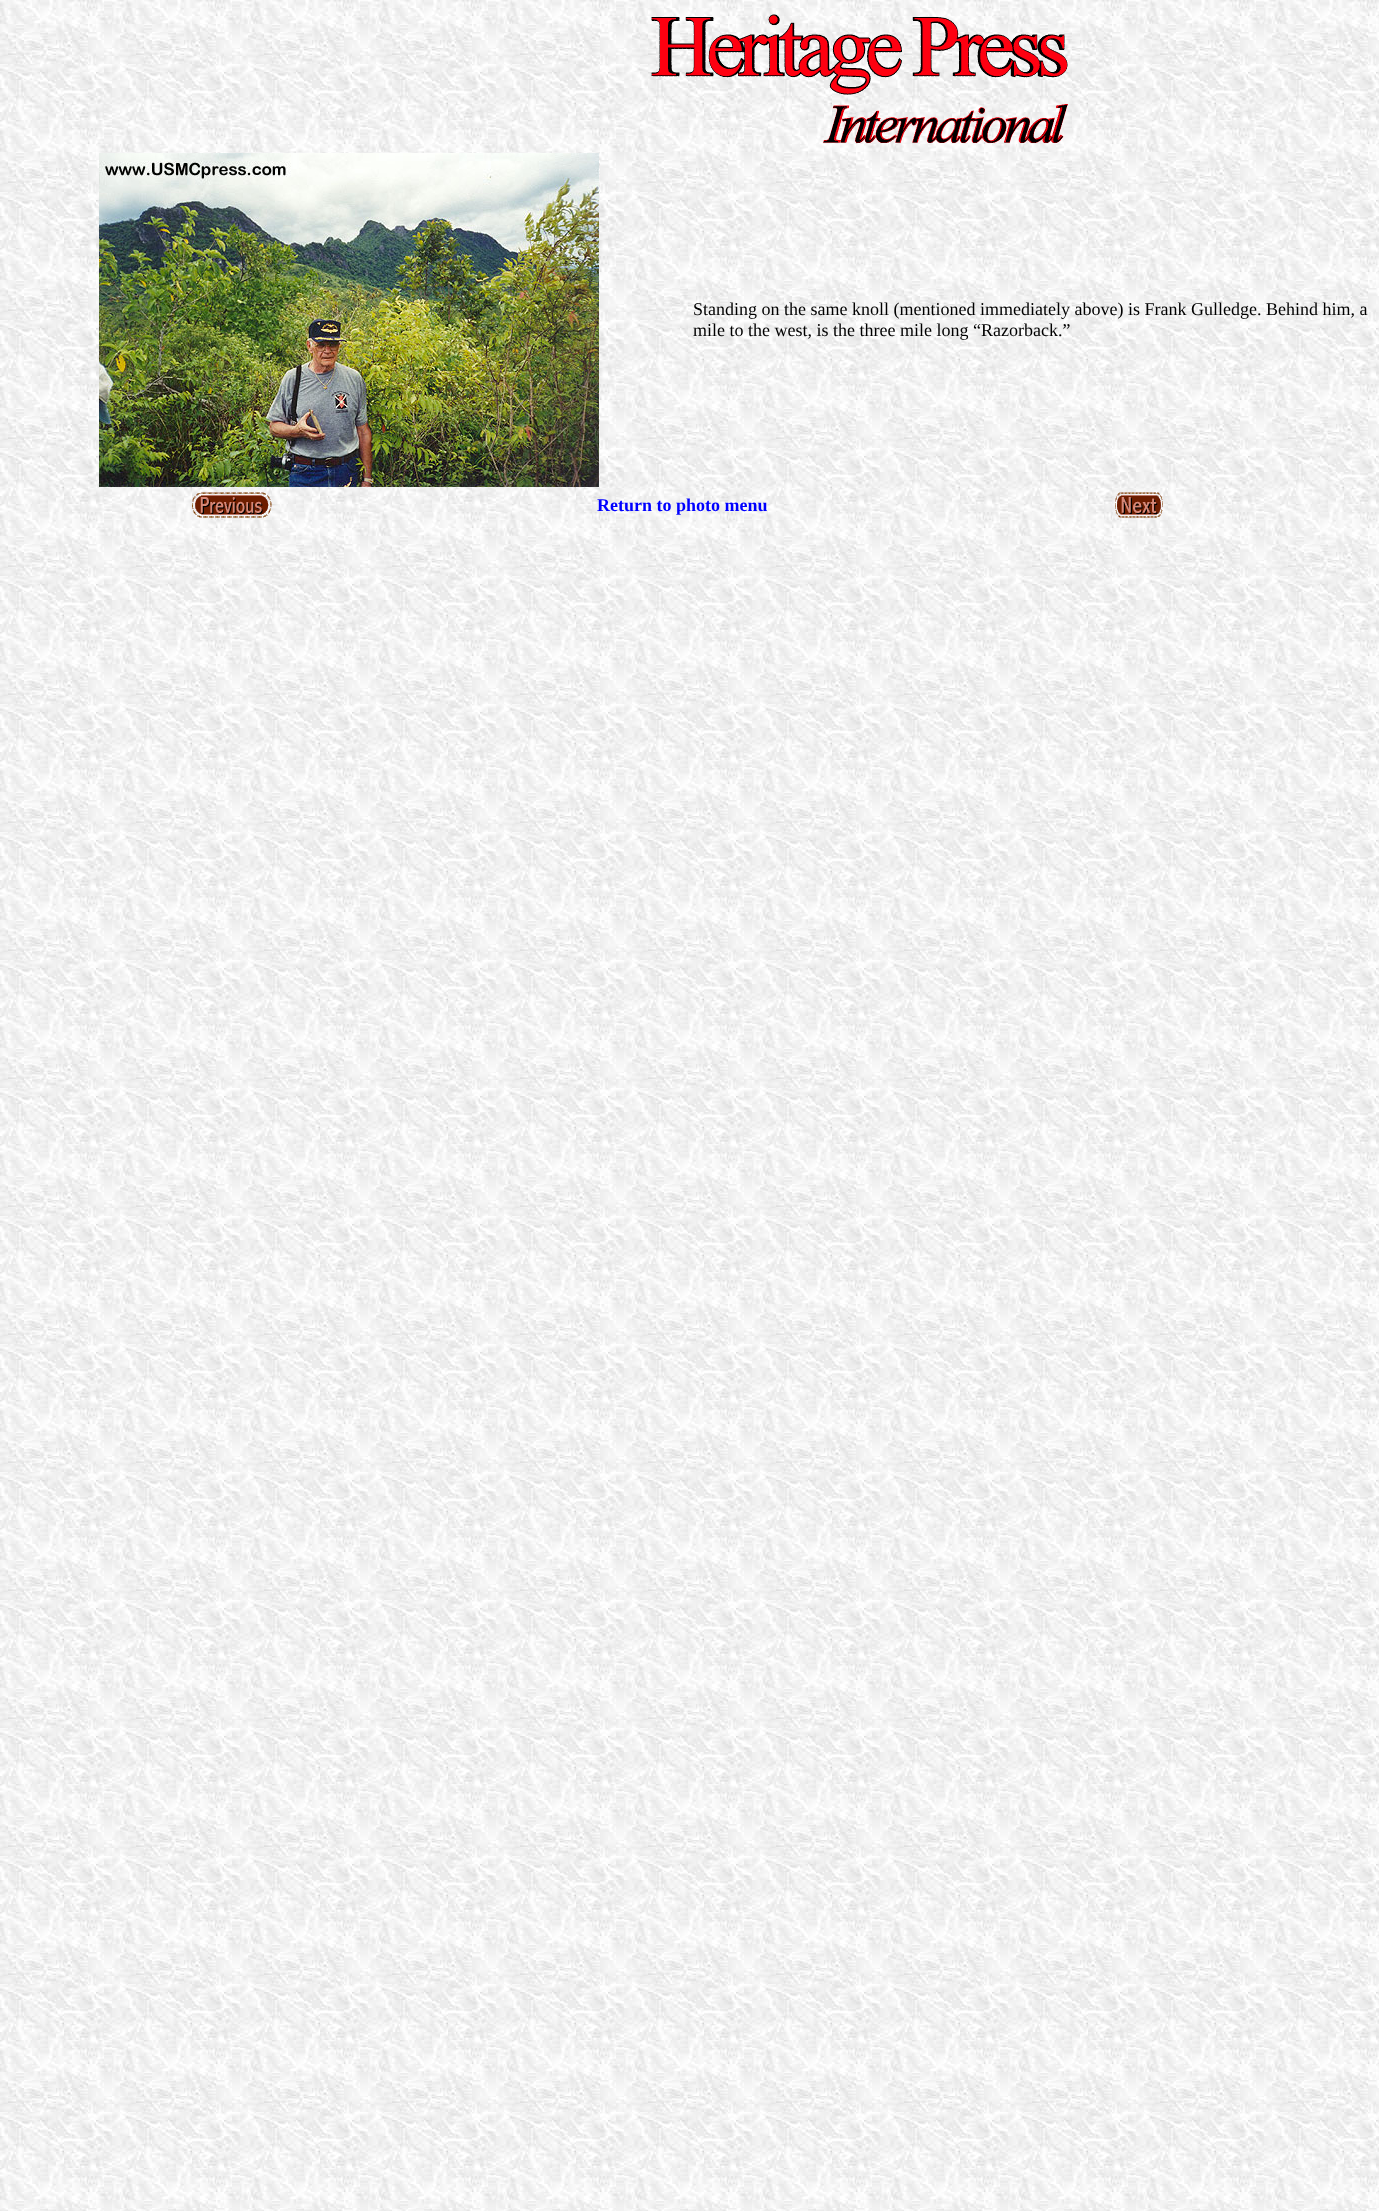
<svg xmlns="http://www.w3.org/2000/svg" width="1379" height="2211">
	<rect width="100%" height="100%" fill="#FFFFFF" />
	<image x="0" y="0" width="1379" height="2211" href="assets/img1.png" />
	<image x="651" y="14" width="417" height="81" href="assets/img2.png" />
	<image x="823" y="104" width="245" height="39" href="assets/img3.png" />
	<image x="99" y="153" width="500" height="334" href="assets/img4.png" />
	<g font-family="Liberation Serif" font-size="18" fill="#000000">
		<text x="693" y="315">Standing on the same knoll (mentioned immediately above) is Frank Gulledge. Behind him, a</text>
		<text x="693" y="336">mile to the west, is the three mile long “Razorback.”</text>
	</g>
	<image x="192" y="492" width="80" height="26" href="assets/img5.png" />
	<text x="597" y="511" font-family="Liberation Serif" font-size="18" font-weight="700" fill="#0000FF">Return to photo menu</text>
	<image x="1115" y="492" width="48" height="26" href="assets/img6.png" />
</svg>
